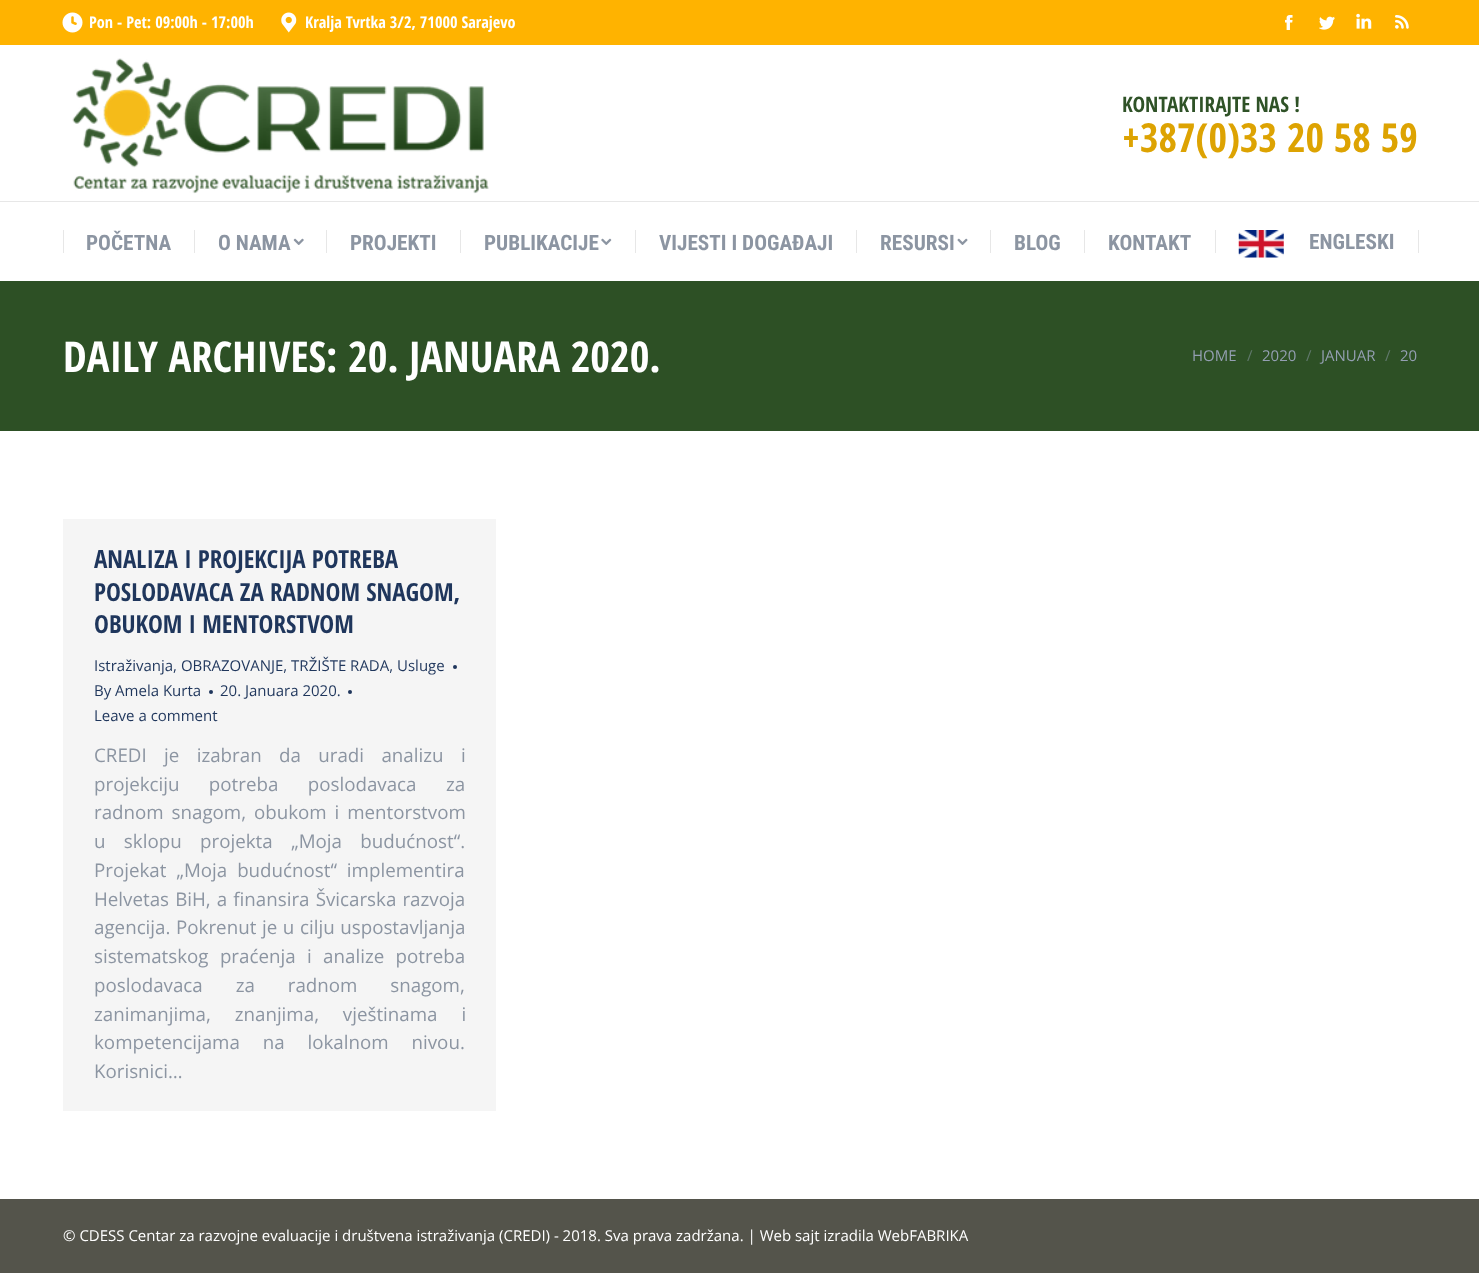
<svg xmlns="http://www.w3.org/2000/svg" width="1479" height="1273">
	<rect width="100%" height="100%" fill="#FFFFFF" />
	<rect x="0" y="0" width="1479" height="45" fill="#FFB300" />
	<image x="62" y="12" width="21" height="21" href="assets/img1.png" />
	<text x="89" y="28" font-family="Open Sans Condensed" font-size="16.25" font-weight="700" fill="#FFFFFF">Pon - Pet: 09:00h - 17:00h</text>
	<image x="281" y="12" width="16" height="21" href="assets/img2.png" />
	<text x="305" y="28" font-family="Open Sans Condensed" font-size="16.25" font-weight="700" fill="#FFFFFF">Kralja Tvrtka 3/2, 71000 Sarajevo</text>
	<image x="1285" y="15" width="8" height="15" href="assets/img3.png" />
	<image x="1319" y="16" width="16" height="14" href="assets/img4.png" />
	<image x="1356" y="13" width="16" height="16" href="assets/img5.png" />
	<image x="1395" y="15" width="14" height="14" href="assets/img6.png" />
	<image x="72" y="58" width="417" height="136" href="assets/img7.png" />
	<text x="1122" y="112" font-family="Open Sans Condensed" font-size="21.25" font-weight="700" fill="#2F5227">KONTAKTIRAJTE NAS !</text>
	<text x="1122" y="152" font-family="Open Sans Condensed" font-size="40" font-weight="700" fill="#DDA302">+387(0)33 20 58 59</text>
	<rect x="0" y="201" width="1479" height="1" fill="#E7E7E7" />
	<rect x="63" y="230" width="1" height="23" fill="#E7E7E7" />
	<text x="86" y="250" font-family="Roboto Condensed" font-size="21.25" font-weight="700" fill="#8C95A2">POČETNA</text>
	<rect x="194" y="230" width="1" height="23" fill="#E7E7E7" />
	<text x="218" y="250" font-family="Roboto Condensed" font-size="21.25" font-weight="700" fill="#8C95A2">O NAMA</text>
	<image x="293" y="238" width="11" height="7" href="assets/img8.png" />
	<rect x="326" y="230" width="1" height="23" fill="#E7E7E7" />
	<text x="350" y="250" font-family="Roboto Condensed" font-size="21.25" font-weight="700" fill="#8C95A2">PROJEKTI</text>
	<rect x="460" y="230" width="1" height="23" fill="#E7E7E7" />
	<text x="484" y="250" font-family="Roboto Condensed" font-size="21.25" font-weight="700" fill="#8C95A2">PUBLIKACIJE</text>
	<image x="601" y="238" width="11" height="7" href="assets/img9.png" />
	<rect x="635" y="230" width="1" height="23" fill="#E7E7E7" />
	<text x="659" y="250" font-family="Roboto Condensed" font-size="21.25" font-weight="700" fill="#8C95A2">VIJESTI I DOGAĐAJI</text>
	<rect x="856" y="230" width="1" height="23" fill="#E7E7E7" />
	<text x="880" y="250" font-family="Roboto Condensed" font-size="21.25" font-weight="700" fill="#8C95A2">RESURSI</text>
	<image x="957" y="238" width="11" height="7" href="assets/img10.png" />
	<rect x="990" y="230" width="1" height="23" fill="#E7E7E7" />
	<text x="1014" y="250" font-family="Roboto Condensed" font-size="21.25" font-weight="700" fill="#8C95A2">BLOG</text>
	<rect x="1084" y="230" width="1" height="23" fill="#E7E7E7" />
	<text x="1108" y="250" font-family="Roboto Condensed" font-size="21.25" font-weight="700" fill="#8C95A2">KONTAKT</text>
	<rect x="1215" y="230" width="1" height="23" fill="#E7E7E7" />
	<image x="1238" y="230" width="46" height="28" href="assets/img11.png" />
	<text x="1309" y="249" font-family="Roboto Condensed" font-size="21.25" font-weight="700" fill="#8C95A2">ENGLESKI</text>
	<rect x="1418" y="230" width="1" height="23" fill="#E7E7E7" />
	<rect x="0" y="281" width="1479" height="150" fill="#2D5025" />
	<text x="63" y="372" font-family="Open Sans Condensed" font-size="42.5" font-weight="700" fill="#FFFFFF">DAILY ARCHIVES: 20. JANUARA 2020.</text>
	<text x="1192" y="361" font-family="Open Sans" font-size="15" fill="#949FB2">HOME</text>
	<text x="1247" y="361" font-family="Open Sans" font-size="15" fill="#61786C">/</text>
	<text x="1262" y="361" font-family="Open Sans" font-size="15" fill="#949FB2">2020</text>
	<text x="1306" y="361" font-family="Open Sans" font-size="15" fill="#61786C">/</text>
	<text x="1321" y="361" font-family="Open Sans" font-size="15" fill="#949FB2">JANUAR</text>
	<text x="1385" y="361" font-family="Open Sans" font-size="15" fill="#61786C">/</text>
	<text x="1400" y="361" font-family="Open Sans" font-size="15" fill="#949FB2">20</text>
	<rect x="63" y="519" width="433" height="592" fill="#F5F5F5" />
	<g font-family="Open Sans Condensed" font-size="25" font-weight="700" fill="#1F365C">
		<text x="94" y="568">ANALIZA I PROJEKCIJA POTREBA</text>
		<text x="94" y="601">POSLODAVACA ZA RADNOM SNAGOM,</text>
		<text x="94" y="633">OBUKOM I MENTORSTVOM</text>
	</g>
	<text x="94" y="671" font-family="Open Sans" font-size="15" fill="#1F365C">Istraživanja, OBRAZOVANJE, TRŽIŠTE RADA, Usluge</text>
	<circle cx="455" cy="667" r="2" fill="#1F365C" />
	<text x="94" y="696" font-family="Open Sans" font-size="15" fill="#1F365C">By Amela Kurta</text>
	<circle cx="211" cy="692" r="2" fill="#1F365C" />
	<text x="220" y="696" font-family="Open Sans" font-size="15" fill="#1F365C">20. Januara 2020.</text>
	<circle cx="350" cy="692" r="2" fill="#1F365C" />
	<text x="94" y="721" font-family="Open Sans" font-size="15" fill="#1F365C">Leave a comment</text>
	<g font-family="Open Sans" font-size="18.75" fill="#8C95A2">
		<text x="94" y="762" word-spacing="12.5">CREDI je izabran da uradi analizu i</text>
		<text x="94" y="791" word-spacing="24.5">projekciju potreba poslodavaca za</text>
		<text x="94" y="819" word-spacing="3">radnom snagom, obukom i mentorstvom</text>
		<text x="94" y="848" word-spacing="13.5">u sklopu projekta „Moja budućnost“.</text>
		<text x="94" y="877" word-spacing="5">Projekat „Moja budućnost“ implementira</text>
		<text x="94" y="906" word-spacing="1.25">Helvetas BiH, a finansira Švicarska razvoja</text>
		<text x="94" y="934" word-spacing="0.75">agencija. Pokrenut je u cilju uspostavljanja</text>
		<text x="94" y="963" word-spacing="6.5">sistematskog praćenja i analize potreba</text>
		<text x="94" y="992" word-spacing="28">poslodavaca za radnom snagom,</text>
		<text x="94" y="1021" word-spacing="19">zanimanjima, znanjima, vještinama i</text>
		<text x="94" y="1049" word-spacing="18">kompetencijama na lokalnom nivou.</text>
		<text x="94" y="1078">Korisnici…</text>
	</g>
	<rect x="0" y="1199" width="1479" height="74" fill="#54544B" />
	<text x="63" y="1241" font-family="Open Sans" font-size="15" fill="#FFFFFF">© CDESS Centar za razvojne evaluacije i društvena istraživanja (CREDI) - 2018. Sva prava zadržana. | Web sajt izradila WebFABRIKA</text>
</svg>
